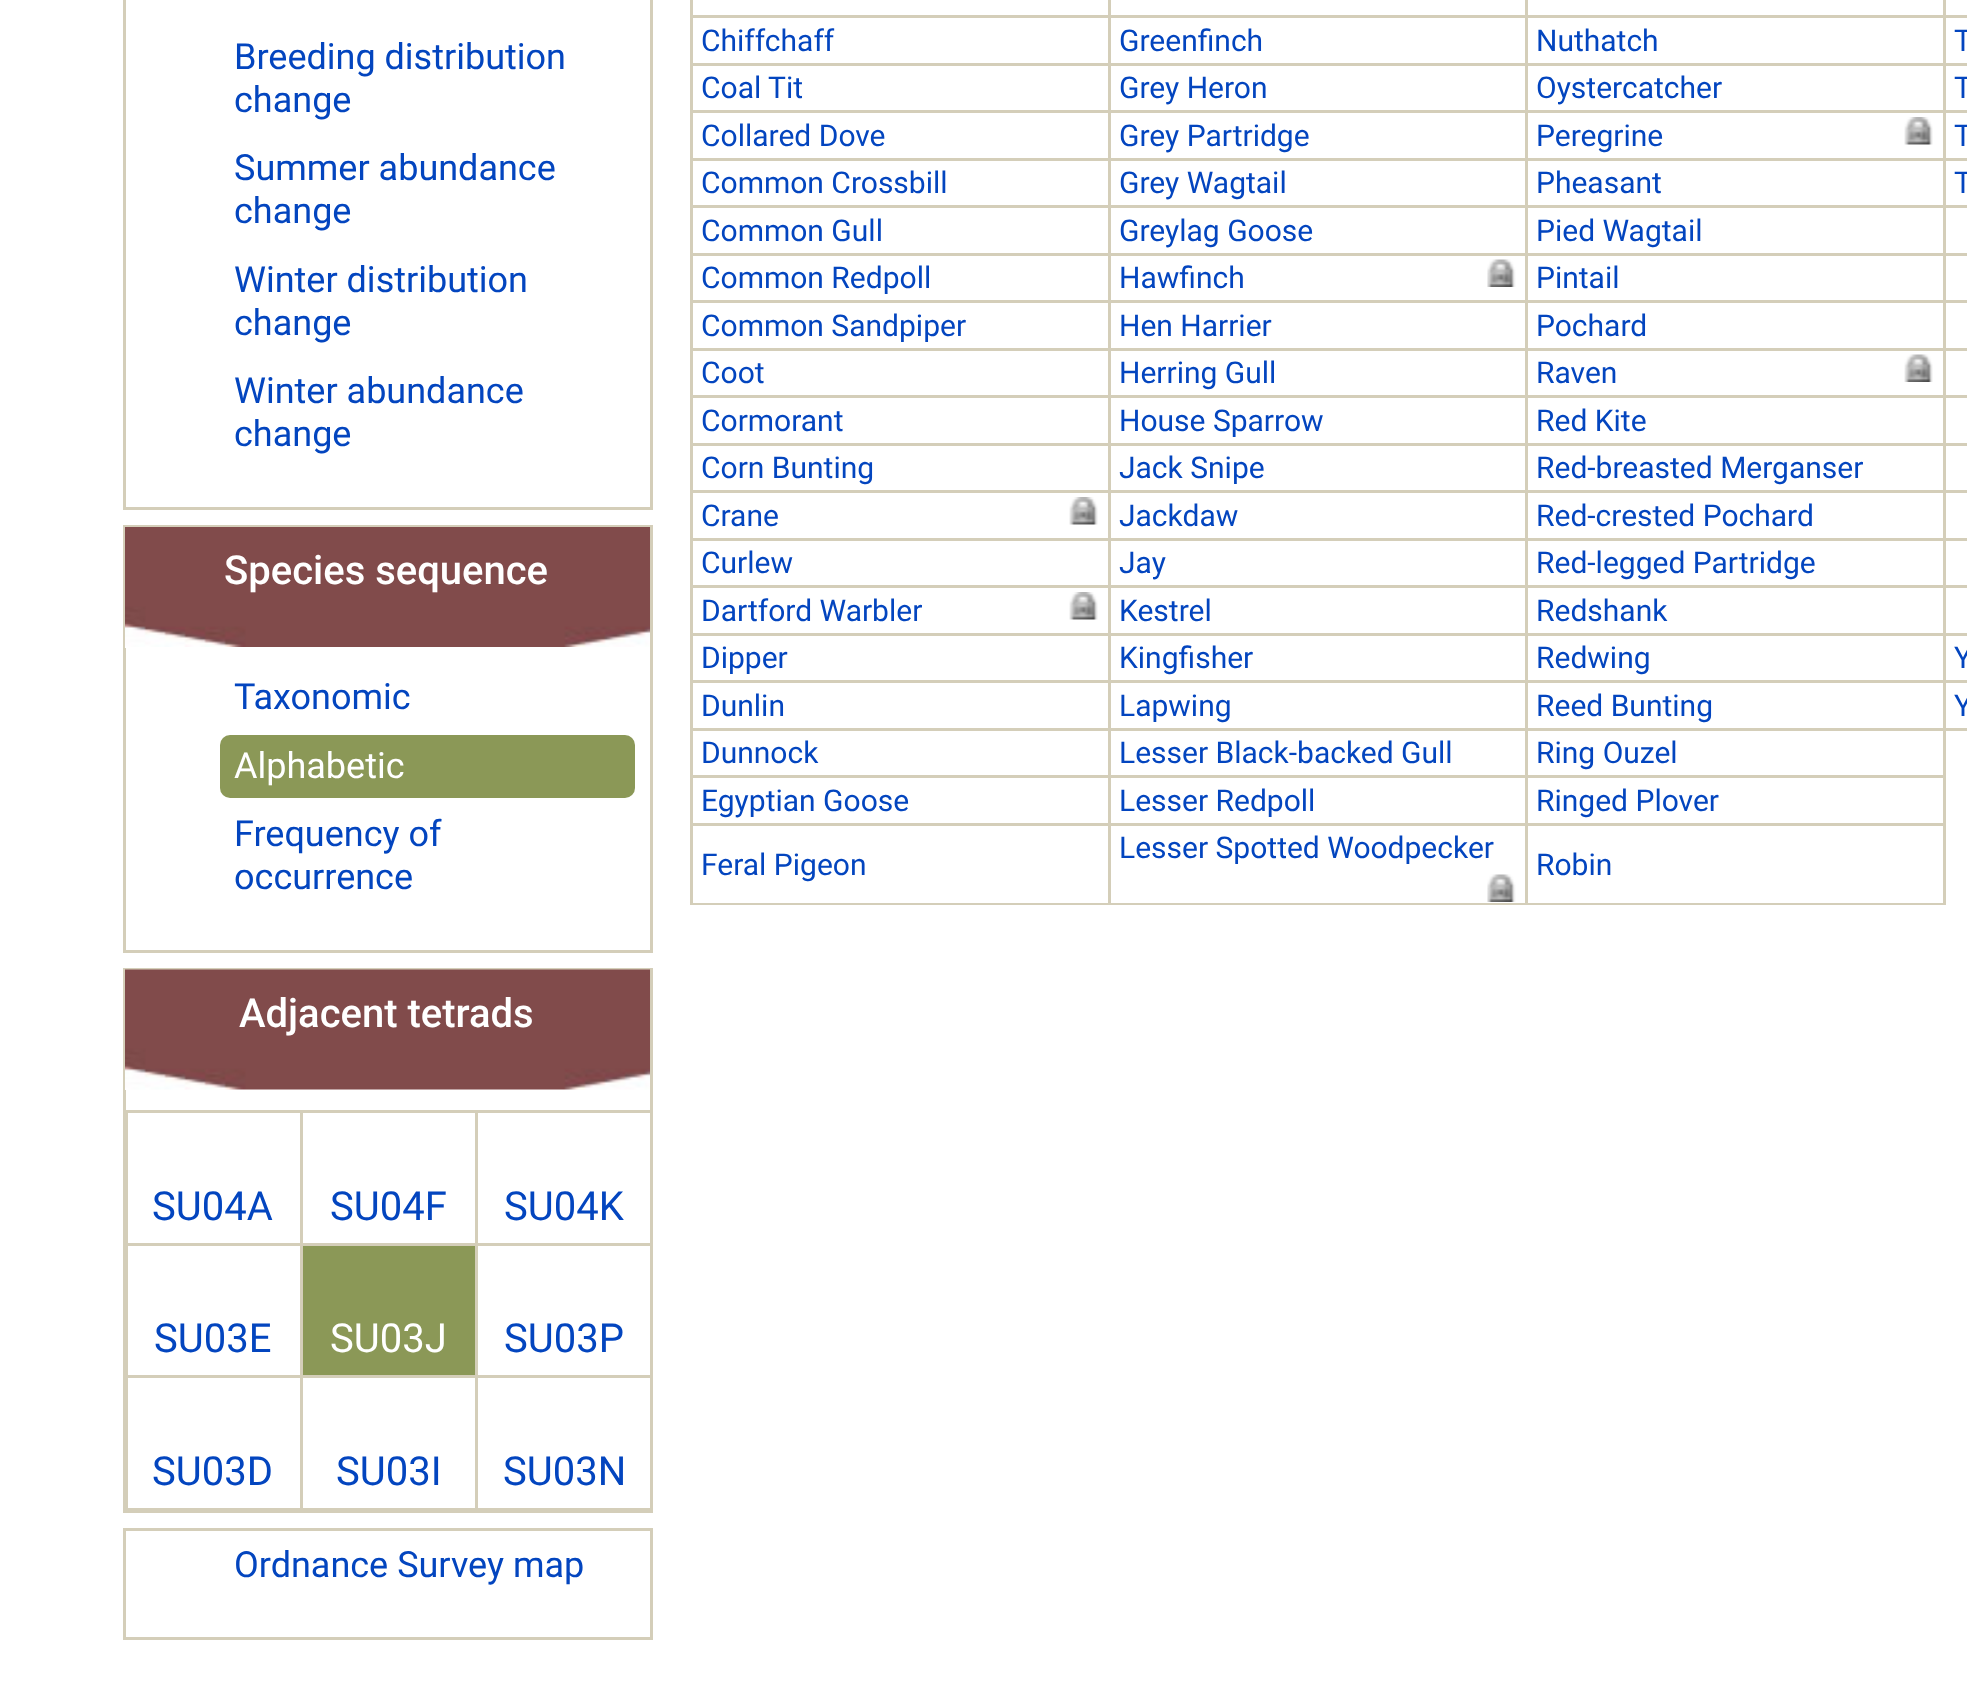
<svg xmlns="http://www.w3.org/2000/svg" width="1967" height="1703">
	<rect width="100%" height="100%" fill="#FFFFFF" />
	<rect x="124.5" y="-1.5" width="527" height="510" fill="none" stroke="#D4CEB9" stroke-width="3" />
	<g font-family="Roboto" font-size="36" fill="#0345BF">
		<text x="234" y="69">Breeding distribution</text>
		<text x="234" y="112">change</text>
		<text x="234" y="180">Summer abundance</text>
		<text x="234" y="223">change</text>
		<text x="234" y="292">Winter distribution</text>
		<text x="234" y="335">change</text>
		<text x="234" y="403">Winter abundance</text>
		<text x="234" y="446">change</text>
	</g>
	<rect x="124.5" y="526.5" width="527" height="425" fill="none" stroke="#D4CEB9" stroke-width="3" />
	<rect x="125" y="647" width="1" height="1" fill="#FFFFFF" />
	<image x="125" y="527" width="525" height="120" href="assets/img1.png" />
	<text x="224" y="584" font-family="Roboto" font-size="40" font-weight="500" fill="#FFFFFF">Species sequence</text>
	<text x="234" y="709" font-family="Roboto" font-size="36" fill="#0345BF">Taxonomic</text>
	<rect x="220" y="735" width="415" height="63" rx="10" fill="#8B9857" />
	<text x="234" y="778" font-family="Roboto" font-size="36" fill="#FFFFFF">Alphabetic</text>
	<g font-family="Roboto" font-size="36" fill="#0345BF">
		<text x="234" y="846">Frequency of</text>
		<text x="234" y="889">occurrence</text>
	</g>
	<rect x="124.5" y="969.5" width="527" height="542" fill="none" stroke="#D4CEB9" stroke-width="3" />
	<rect x="125" y="1089" width="1" height="1" fill="#FFFFFF" />
	<image x="125" y="969" width="525" height="121" href="assets/img2.png" />
	<text x="239" y="1027" font-family="Roboto" font-size="40" font-weight="500" fill="#FFFFFF">Adjacent tetrads</text>
	<rect x="475" y="1110" width="178" height="3" fill="#D4CEB9" />
	<rect x="475" y="1243" width="178" height="3" fill="#D4CEB9" />
	<rect x="475" y="1375" width="178" height="3" fill="#D4CEB9" />
	<rect x="475" y="1508" width="178" height="2" fill="#D4CEB9" />
	<rect x="475" y="1375" width="3" height="135" fill="#D4CEB9" />
	<rect x="300" y="1375" width="178" height="3" fill="#D4CEB9" />
	<rect x="475" y="1243" width="3" height="135" fill="#D4CEB9" />
	<rect x="300" y="1243" width="178" height="3" fill="#D4CEB9" />
	<rect x="475" y="1110" width="3" height="135" fill="#D4CEB9" />
	<rect x="300" y="1110" width="178" height="3" fill="#D4CEB9" />
	<rect x="300" y="1508" width="178" height="2" fill="#D4CEB9" />
	<rect x="300" y="1375" width="3" height="135" fill="#D4CEB9" />
	<rect x="125" y="1375" width="178" height="3" fill="#D4CEB9" />
	<rect x="300" y="1243" width="3" height="135" fill="#D4CEB9" />
	<rect x="125" y="1243" width="178" height="3" fill="#D4CEB9" />
	<rect x="300" y="1110" width="3" height="135" fill="#D4CEB9" />
	<rect x="125" y="1110" width="178" height="3" fill="#D4CEB9" />
	<rect x="125" y="1508" width="178" height="2" fill="#D4CEB9" />
	<rect x="126" y="1375" width="2" height="135" fill="#D4CEB9" />
	<rect x="126" y="1243" width="2" height="135" fill="#D4CEB9" />
	<rect x="126" y="1110" width="2" height="135" fill="#D4CEB9" />
	<g font-family="Roboto" font-size="40" fill="#0345BF">
		<text x="152" y="1220">SU04A</text>
		<text x="330" y="1220">SU04F</text>
		<text x="504" y="1220">SU04K</text>
		<text x="154" y="1352">SU03E</text>
	</g>
	<rect x="303" y="1246" width="172" height="129" fill="#8B9857" />
	<text x="330" y="1352" font-family="Roboto" font-size="40" fill="#FFFFFF">SU03J</text>
	<g font-family="Roboto" font-size="40" fill="#0345BF">
		<text x="504" y="1352">SU03P</text>
		<text x="152" y="1485">SU03D</text>
		<text x="336" y="1485">SU03I</text>
		<text x="503" y="1485">SU03N</text>
	</g>
	<rect x="124.5" y="1529.5" width="527" height="109" fill="none" stroke="#D4CEB9" stroke-width="3" />
	<text x="234" y="1577" font-family="Roboto" font-size="36" fill="#0345BF">Ordnance Survey map</text>
	<rect x="1943" y="15" width="24" height="3" fill="#D4CEB9" />
	<rect x="1943" y="63" width="24" height="3" fill="#D4CEB9" />
	<rect x="1943" y="110" width="24" height="3" fill="#D4CEB9" />
	<rect x="1943" y="158" width="24" height="3" fill="#D4CEB9" />
	<rect x="1943" y="205" width="24" height="3" fill="#D4CEB9" />
	<rect x="1943" y="253" width="24" height="3" fill="#D4CEB9" />
	<rect x="1943" y="300" width="24" height="3" fill="#D4CEB9" />
	<rect x="1943" y="348" width="24" height="3" fill="#D4CEB9" />
	<rect x="1943" y="395" width="24" height="3" fill="#D4CEB9" />
	<rect x="1943" y="443" width="24" height="3" fill="#D4CEB9" />
	<rect x="1943" y="490" width="24" height="3" fill="#D4CEB9" />
	<rect x="1943" y="538" width="24" height="3" fill="#D4CEB9" />
	<rect x="1943" y="585" width="24" height="3" fill="#D4CEB9" />
	<rect x="1943" y="633" width="24" height="3" fill="#D4CEB9" />
	<rect x="1943" y="680" width="24" height="3" fill="#D4CEB9" />
	<rect x="1525" y="728" width="420" height="3" fill="#D4CEB9" />
	<rect x="1525" y="775" width="420" height="3" fill="#D4CEB9" />
	<rect x="1525" y="823" width="420" height="3" fill="#D4CEB9" />
	<rect x="1943" y="823" width="3" height="82" fill="#D4CEB9" />
	<rect x="1943" y="775" width="3" height="50" fill="#D4CEB9" />
	<rect x="1943" y="728" width="3" height="50" fill="#D4CEB9" />
	<rect x="1943" y="728" width="24" height="3" fill="#D4CEB9" />
	<rect x="1943" y="680" width="3" height="50" fill="#D4CEB9" />
	<rect x="1525" y="680" width="420" height="3" fill="#D4CEB9" />
	<rect x="1943" y="633" width="3" height="50" fill="#D4CEB9" />
	<rect x="1525" y="633" width="420" height="3" fill="#D4CEB9" />
	<rect x="1943" y="585" width="3" height="50" fill="#D4CEB9" />
	<rect x="1525" y="585" width="420" height="3" fill="#D4CEB9" />
	<rect x="1943" y="538" width="3" height="50" fill="#D4CEB9" />
	<rect x="1525" y="538" width="420" height="3" fill="#D4CEB9" />
	<rect x="1943" y="490" width="3" height="50" fill="#D4CEB9" />
	<rect x="1525" y="490" width="420" height="3" fill="#D4CEB9" />
	<rect x="1943" y="443" width="3" height="50" fill="#D4CEB9" />
	<rect x="1525" y="443" width="420" height="3" fill="#D4CEB9" />
	<rect x="1943" y="395" width="3" height="50" fill="#D4CEB9" />
	<rect x="1525" y="395" width="420" height="3" fill="#D4CEB9" />
	<rect x="1943" y="348" width="3" height="50" fill="#D4CEB9" />
	<rect x="1525" y="348" width="420" height="3" fill="#D4CEB9" />
	<rect x="1943" y="300" width="3" height="50" fill="#D4CEB9" />
	<rect x="1525" y="300" width="420" height="3" fill="#D4CEB9" />
	<rect x="1943" y="253" width="3" height="50" fill="#D4CEB9" />
	<rect x="1525" y="253" width="420" height="3" fill="#D4CEB9" />
	<rect x="1943" y="205" width="3" height="50" fill="#D4CEB9" />
	<rect x="1525" y="205" width="420" height="3" fill="#D4CEB9" />
	<rect x="1943" y="158" width="3" height="50" fill="#D4CEB9" />
	<rect x="1525" y="158" width="420" height="3" fill="#D4CEB9" />
	<rect x="1943" y="110" width="3" height="50" fill="#D4CEB9" />
	<rect x="1525" y="110" width="420" height="3" fill="#D4CEB9" />
	<rect x="1943" y="63" width="3" height="50" fill="#D4CEB9" />
	<rect x="1525" y="63" width="420" height="3" fill="#D4CEB9" />
	<rect x="1943" y="15" width="3" height="50" fill="#D4CEB9" />
	<rect x="1525" y="15" width="420" height="3" fill="#D4CEB9" />
	<rect x="1525" y="903" width="420" height="2" fill="#D4CEB9" />
	<rect x="1525" y="823" width="3" height="82" fill="#D4CEB9" />
	<rect x="1108" y="823" width="420" height="3" fill="#D4CEB9" />
	<rect x="1525" y="775" width="3" height="50" fill="#D4CEB9" />
	<rect x="1108" y="775" width="420" height="3" fill="#D4CEB9" />
	<rect x="1525" y="728" width="3" height="50" fill="#D4CEB9" />
	<rect x="1108" y="728" width="420" height="3" fill="#D4CEB9" />
	<rect x="1525" y="680" width="3" height="50" fill="#D4CEB9" />
	<rect x="1108" y="680" width="420" height="3" fill="#D4CEB9" />
	<rect x="1525" y="633" width="3" height="50" fill="#D4CEB9" />
	<rect x="1108" y="633" width="420" height="3" fill="#D4CEB9" />
	<rect x="1525" y="585" width="3" height="50" fill="#D4CEB9" />
	<rect x="1108" y="585" width="420" height="3" fill="#D4CEB9" />
	<rect x="1525" y="538" width="3" height="50" fill="#D4CEB9" />
	<rect x="1108" y="538" width="420" height="3" fill="#D4CEB9" />
	<rect x="1525" y="490" width="3" height="50" fill="#D4CEB9" />
	<rect x="1108" y="490" width="420" height="3" fill="#D4CEB9" />
	<rect x="1525" y="443" width="3" height="50" fill="#D4CEB9" />
	<rect x="1108" y="443" width="420" height="3" fill="#D4CEB9" />
	<rect x="1525" y="395" width="3" height="50" fill="#D4CEB9" />
	<rect x="1108" y="395" width="420" height="3" fill="#D4CEB9" />
	<rect x="1525" y="348" width="3" height="50" fill="#D4CEB9" />
	<rect x="1108" y="348" width="420" height="3" fill="#D4CEB9" />
	<rect x="1525" y="300" width="3" height="50" fill="#D4CEB9" />
	<rect x="1108" y="300" width="420" height="3" fill="#D4CEB9" />
	<rect x="1525" y="253" width="3" height="50" fill="#D4CEB9" />
	<rect x="1108" y="253" width="420" height="3" fill="#D4CEB9" />
	<rect x="1525" y="205" width="3" height="50" fill="#D4CEB9" />
	<rect x="1108" y="205" width="420" height="3" fill="#D4CEB9" />
	<rect x="1525" y="158" width="3" height="50" fill="#D4CEB9" />
	<rect x="1108" y="158" width="420" height="3" fill="#D4CEB9" />
	<rect x="1525" y="110" width="3" height="50" fill="#D4CEB9" />
	<rect x="1108" y="110" width="420" height="3" fill="#D4CEB9" />
	<rect x="1525" y="63" width="3" height="50" fill="#D4CEB9" />
	<rect x="1108" y="63" width="420" height="3" fill="#D4CEB9" />
	<rect x="1525" y="15" width="3" height="50" fill="#D4CEB9" />
	<rect x="1108" y="15" width="420" height="3" fill="#D4CEB9" />
	<rect x="1108" y="903" width="420" height="2" fill="#D4CEB9" />
	<rect x="1108" y="823" width="3" height="82" fill="#D4CEB9" />
	<rect x="690" y="823" width="420" height="3" fill="#D4CEB9" />
	<rect x="1108" y="775" width="3" height="50" fill="#D4CEB9" />
	<rect x="690" y="775" width="420" height="3" fill="#D4CEB9" />
	<rect x="1108" y="728" width="3" height="50" fill="#D4CEB9" />
	<rect x="690" y="728" width="420" height="3" fill="#D4CEB9" />
	<rect x="1108" y="680" width="3" height="50" fill="#D4CEB9" />
	<rect x="690" y="680" width="420" height="3" fill="#D4CEB9" />
	<rect x="1108" y="633" width="3" height="50" fill="#D4CEB9" />
	<rect x="690" y="633" width="420" height="3" fill="#D4CEB9" />
	<rect x="1108" y="585" width="3" height="50" fill="#D4CEB9" />
	<rect x="690" y="585" width="420" height="3" fill="#D4CEB9" />
	<rect x="1108" y="538" width="3" height="50" fill="#D4CEB9" />
	<rect x="690" y="538" width="420" height="3" fill="#D4CEB9" />
	<rect x="1108" y="490" width="3" height="50" fill="#D4CEB9" />
	<rect x="690" y="490" width="420" height="3" fill="#D4CEB9" />
	<rect x="1108" y="443" width="3" height="50" fill="#D4CEB9" />
	<rect x="690" y="443" width="420" height="3" fill="#D4CEB9" />
	<rect x="1108" y="395" width="3" height="50" fill="#D4CEB9" />
	<rect x="690" y="395" width="420" height="3" fill="#D4CEB9" />
	<rect x="1108" y="348" width="3" height="50" fill="#D4CEB9" />
	<rect x="690" y="348" width="420" height="3" fill="#D4CEB9" />
	<rect x="1108" y="300" width="3" height="50" fill="#D4CEB9" />
	<rect x="690" y="300" width="420" height="3" fill="#D4CEB9" />
	<rect x="1108" y="253" width="3" height="50" fill="#D4CEB9" />
	<rect x="690" y="253" width="420" height="3" fill="#D4CEB9" />
	<rect x="1108" y="205" width="3" height="50" fill="#D4CEB9" />
	<rect x="690" y="205" width="420" height="3" fill="#D4CEB9" />
	<rect x="1108" y="158" width="3" height="50" fill="#D4CEB9" />
	<rect x="690" y="158" width="420" height="3" fill="#D4CEB9" />
	<rect x="1108" y="110" width="3" height="50" fill="#D4CEB9" />
	<rect x="690" y="110" width="420" height="3" fill="#D4CEB9" />
	<rect x="1108" y="63" width="3" height="50" fill="#D4CEB9" />
	<rect x="690" y="63" width="420" height="3" fill="#D4CEB9" />
	<rect x="1108" y="15" width="3" height="50" fill="#D4CEB9" />
	<rect x="690" y="15" width="420" height="3" fill="#D4CEB9" />
	<rect x="1108" y="0" width="3" height="18" fill="#D4CEB9" />
	<rect x="1525" y="0" width="3" height="18" fill="#D4CEB9" />
	<rect x="1943" y="0" width="3" height="18" fill="#D4CEB9" />
	<rect x="690" y="903" width="420" height="2" fill="#D4CEB9" />
	<rect x="690" y="823" width="3" height="82" fill="#D4CEB9" />
	<rect x="690" y="775" width="3" height="50" fill="#D4CEB9" />
	<rect x="690" y="728" width="3" height="50" fill="#D4CEB9" />
	<rect x="690" y="680" width="3" height="50" fill="#D4CEB9" />
	<rect x="690" y="633" width="3" height="50" fill="#D4CEB9" />
	<rect x="690" y="585" width="3" height="50" fill="#D4CEB9" />
	<rect x="690" y="538" width="3" height="50" fill="#D4CEB9" />
	<rect x="690" y="490" width="3" height="50" fill="#D4CEB9" />
	<rect x="690" y="443" width="3" height="50" fill="#D4CEB9" />
	<rect x="690" y="395" width="3" height="50" fill="#D4CEB9" />
	<rect x="690" y="348" width="3" height="50" fill="#D4CEB9" />
	<rect x="690" y="300" width="3" height="50" fill="#D4CEB9" />
	<rect x="690" y="253" width="3" height="50" fill="#D4CEB9" />
	<rect x="690" y="205" width="3" height="50" fill="#D4CEB9" />
	<rect x="690" y="158" width="3" height="50" fill="#D4CEB9" />
	<rect x="690" y="110" width="3" height="50" fill="#D4CEB9" />
	<rect x="690" y="63" width="3" height="50" fill="#D4CEB9" />
	<rect x="690" y="0" width="3" height="65" fill="#D4CEB9" />
	<g font-family="Roboto" font-size="30" fill="#0345BF">
		<text x="701" y="51">Chiffchaff</text>
		<text x="1119" y="51">Greenfinch</text>
		<text x="1536" y="51">Nuthatch</text>
		<text x="1954" y="51">T</text>
		<text x="701" y="98">Coal Tit</text>
		<text x="1119" y="98">Grey Heron</text>
		<text x="1536" y="98">Oystercatcher</text>
		<text x="1954" y="98">T</text>
		<text x="701" y="146">Collared Dove</text>
		<text x="1119" y="146">Grey Partridge</text>
		<text x="1536" y="146">Peregrine</text>
	</g>
	<image x="1904" y="117" width="29" height="28" href="assets/img3.png" />
	<g font-family="Roboto" font-size="30" fill="#0345BF">
		<text x="1954" y="146">T</text>
		<text x="701" y="193">Common Crossbill</text>
		<text x="1119" y="193">Grey Wagtail</text>
		<text x="1536" y="193">Pheasant</text>
		<text x="1954" y="193">T</text>
		<text x="701" y="241">Common Gull</text>
		<text x="1119" y="241">Greylag Goose</text>
		<text x="1536" y="241">Pied Wagtail</text>
		<text x="701" y="288">Common Redpoll</text>
		<text x="1119" y="288">Hawfinch</text>
	</g>
	<image x="1487" y="259" width="29" height="28" href="assets/img4.png" />
	<g font-family="Roboto" font-size="30" fill="#0345BF">
		<text x="1536" y="288">Pintail</text>
		<text x="701" y="336">Common Sandpiper</text>
		<text x="1119" y="336">Hen Harrier</text>
		<text x="1536" y="336">Pochard</text>
		<text x="701" y="383">Coot</text>
		<text x="1119" y="383">Herring Gull</text>
		<text x="1536" y="383">Raven</text>
	</g>
	<image x="1904" y="354" width="29" height="28" href="assets/img5.png" />
	<g font-family="Roboto" font-size="30" fill="#0345BF">
		<text x="701" y="431">Cormorant</text>
		<text x="1119" y="431">House Sparrow</text>
		<text x="1536" y="431">Red Kite</text>
		<text x="701" y="478">Corn Bunting</text>
		<text x="1119" y="478">Jack Snipe</text>
		<text x="1536" y="478">Red-breasted Merganser</text>
		<text x="701" y="526">Crane</text>
	</g>
	<image x="1069" y="497" width="29" height="28" href="assets/img6.png" />
	<g font-family="Roboto" font-size="30" fill="#0345BF">
		<text x="1119" y="526">Jackdaw</text>
		<text x="1536" y="526">Red-crested Pochard</text>
		<text x="701" y="573">Curlew</text>
		<text x="1119" y="573">Jay</text>
		<text x="1536" y="573">Red-legged Partridge</text>
		<text x="701" y="621">Dartford Warbler</text>
	</g>
	<image x="1069" y="592" width="29" height="28" href="assets/img6.png" />
	<g font-family="Roboto" font-size="30" fill="#0345BF">
		<text x="1119" y="621">Kestrel</text>
		<text x="1536" y="621">Redshank</text>
		<text x="701" y="668">Dipper</text>
		<text x="1119" y="668">Kingfisher</text>
		<text x="1536" y="668">Redwing</text>
		<text x="1954" y="668">Y</text>
		<text x="701" y="716">Dunlin</text>
		<text x="1119" y="716">Lapwing</text>
		<text x="1536" y="716">Reed Bunting</text>
		<text x="1954" y="716">Y</text>
		<text x="701" y="763">Dunnock</text>
		<text x="1119" y="763">Lesser Black-backed Gull</text>
		<text x="1536" y="763">Ring Ouzel</text>
		<text x="701" y="811">Egyptian Goose</text>
		<text x="1119" y="811">Lesser Redpoll</text>
		<text x="1536" y="811">Ringed Plover</text>
		<text x="701" y="875">Feral Pigeon</text>
		<text x="1119" y="858">Lesser Spotted Woodpecker</text>
	</g>
	<image x="1487" y="874" width="29" height="28" href="assets/img4.png" />
	<text x="1536" y="875" font-family="Roboto" font-size="30" fill="#0345BF">Robin</text>
</svg>
